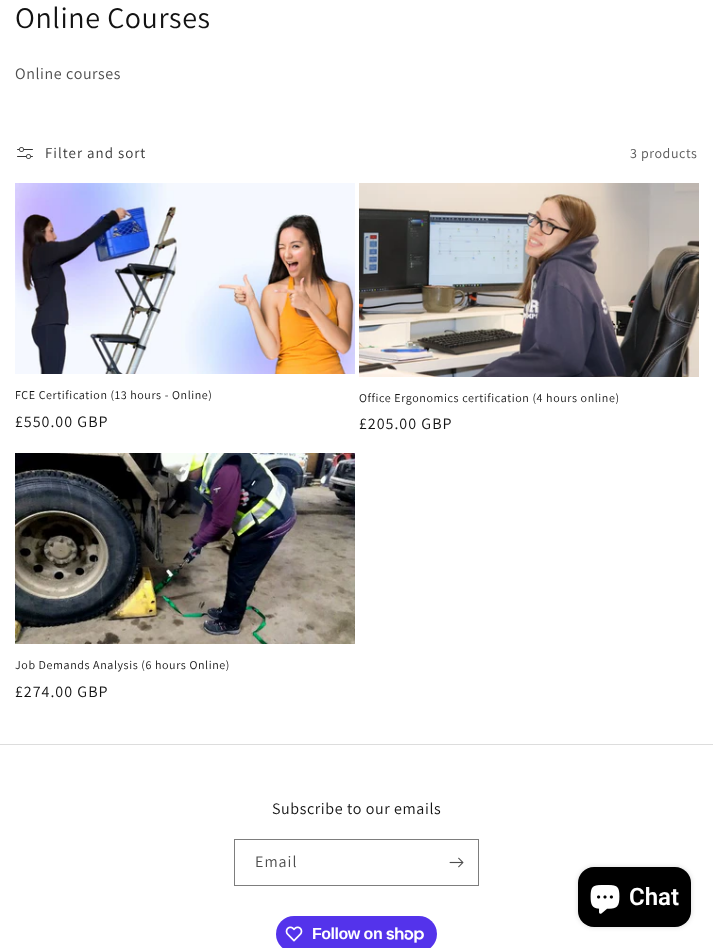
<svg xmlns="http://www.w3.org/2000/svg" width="713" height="948">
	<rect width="100%" height="100%" fill="#FFFFFF" />
	<text x="15" y="28" font-family="Assistant" font-size="30" letter-spacing="0.6" fill="#121212">Online Courses</text>
	<text x="15" y="79" font-family="Assistant" font-size="16" letter-spacing="0.6" fill="#4D4D4D">Online courses</text>
	<image x="17" y="147" width="16" height="12" href="assets/img1.png" />
	<text x="45" y="158" font-family="Assistant" font-size="15" letter-spacing="1" fill="#363636">Filter and sort</text>
	<text x="630" y="158" font-family="Assistant" font-size="14" letter-spacing="0.6" fill="#595959">3 products</text>
	<image x="15" y="183" width="340" height="191" href="assets/img2.png" />
	<text x="15" y="399" font-family="Assistant" font-size="12" letter-spacing="0.6" fill="#121212">FCE Certification (13 hours - Online)</text>
	<text x="15" y="427" font-family="Assistant" font-size="16" letter-spacing="1" fill="#121212">£550.00 GBP</text>
	<image x="359" y="183" width="340" height="194" href="assets/img3.png" />
	<text x="359" y="402" font-family="Assistant" font-size="12" letter-spacing="0.6" fill="#121212">Office Ergonomics certification (4 hours online)</text>
	<text x="359" y="429" font-family="Assistant" font-size="16" letter-spacing="1" fill="#121212">£205.00 GBP</text>
	<image x="15" y="453" width="340" height="191" href="assets/img4.png" />
	<text x="15" y="669" font-family="Assistant" font-size="12" letter-spacing="0.6" fill="#121212">Job Demands Analysis (6 hours Online)</text>
	<text x="15" y="697" font-family="Assistant" font-size="16" letter-spacing="1" fill="#121212">£274.00 GBP</text>
	<rect x="0" y="744" width="713" height="1" fill="#DDDDDD" />
	<text x="272" y="814" font-family="Assistant" font-size="16" letter-spacing="0.6" fill="#121212">Subscribe to our emails</text>
	<rect x="234.5" y="839.5" width="244" height="46" fill="none" stroke="#7D7D7D" />
	<text x="255" y="867" font-family="Assistant" font-size="16" letter-spacing="1" fill="#4D4D4D">Email</text>
	<image x="449" y="857" width="15" height="11" href="assets/img5.png" />
	<rect x="276" y="916" width="161" height="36" rx="18" fill="#5433EB" />
	<image x="285" y="926" width="18" height="16" href="assets/img6.png" />
	<text x="312" y="939" font-family="Liberation Sans" font-size="16" font-weight="700" letter-spacing="-0.5" fill="#FFFFFF">Follow on</text>
	<image x="386" y="927" width="38" height="16" href="assets/img7.png" />
	<rect x="578" y="867" width="113" height="60" rx="16" fill="#000000" fill-opacity="0.15" filter="blur(2.5px)" />
	<rect x="578" y="867" width="113" height="60" rx="16" fill="#000000" />
	<image x="590" y="885" width="30" height="29" href="assets/img8.png" />
	<text x="629" y="905" font-family="Roboto" font-size="24" font-weight="600" fill="#FFFFFF">Chat</text>
</svg>
